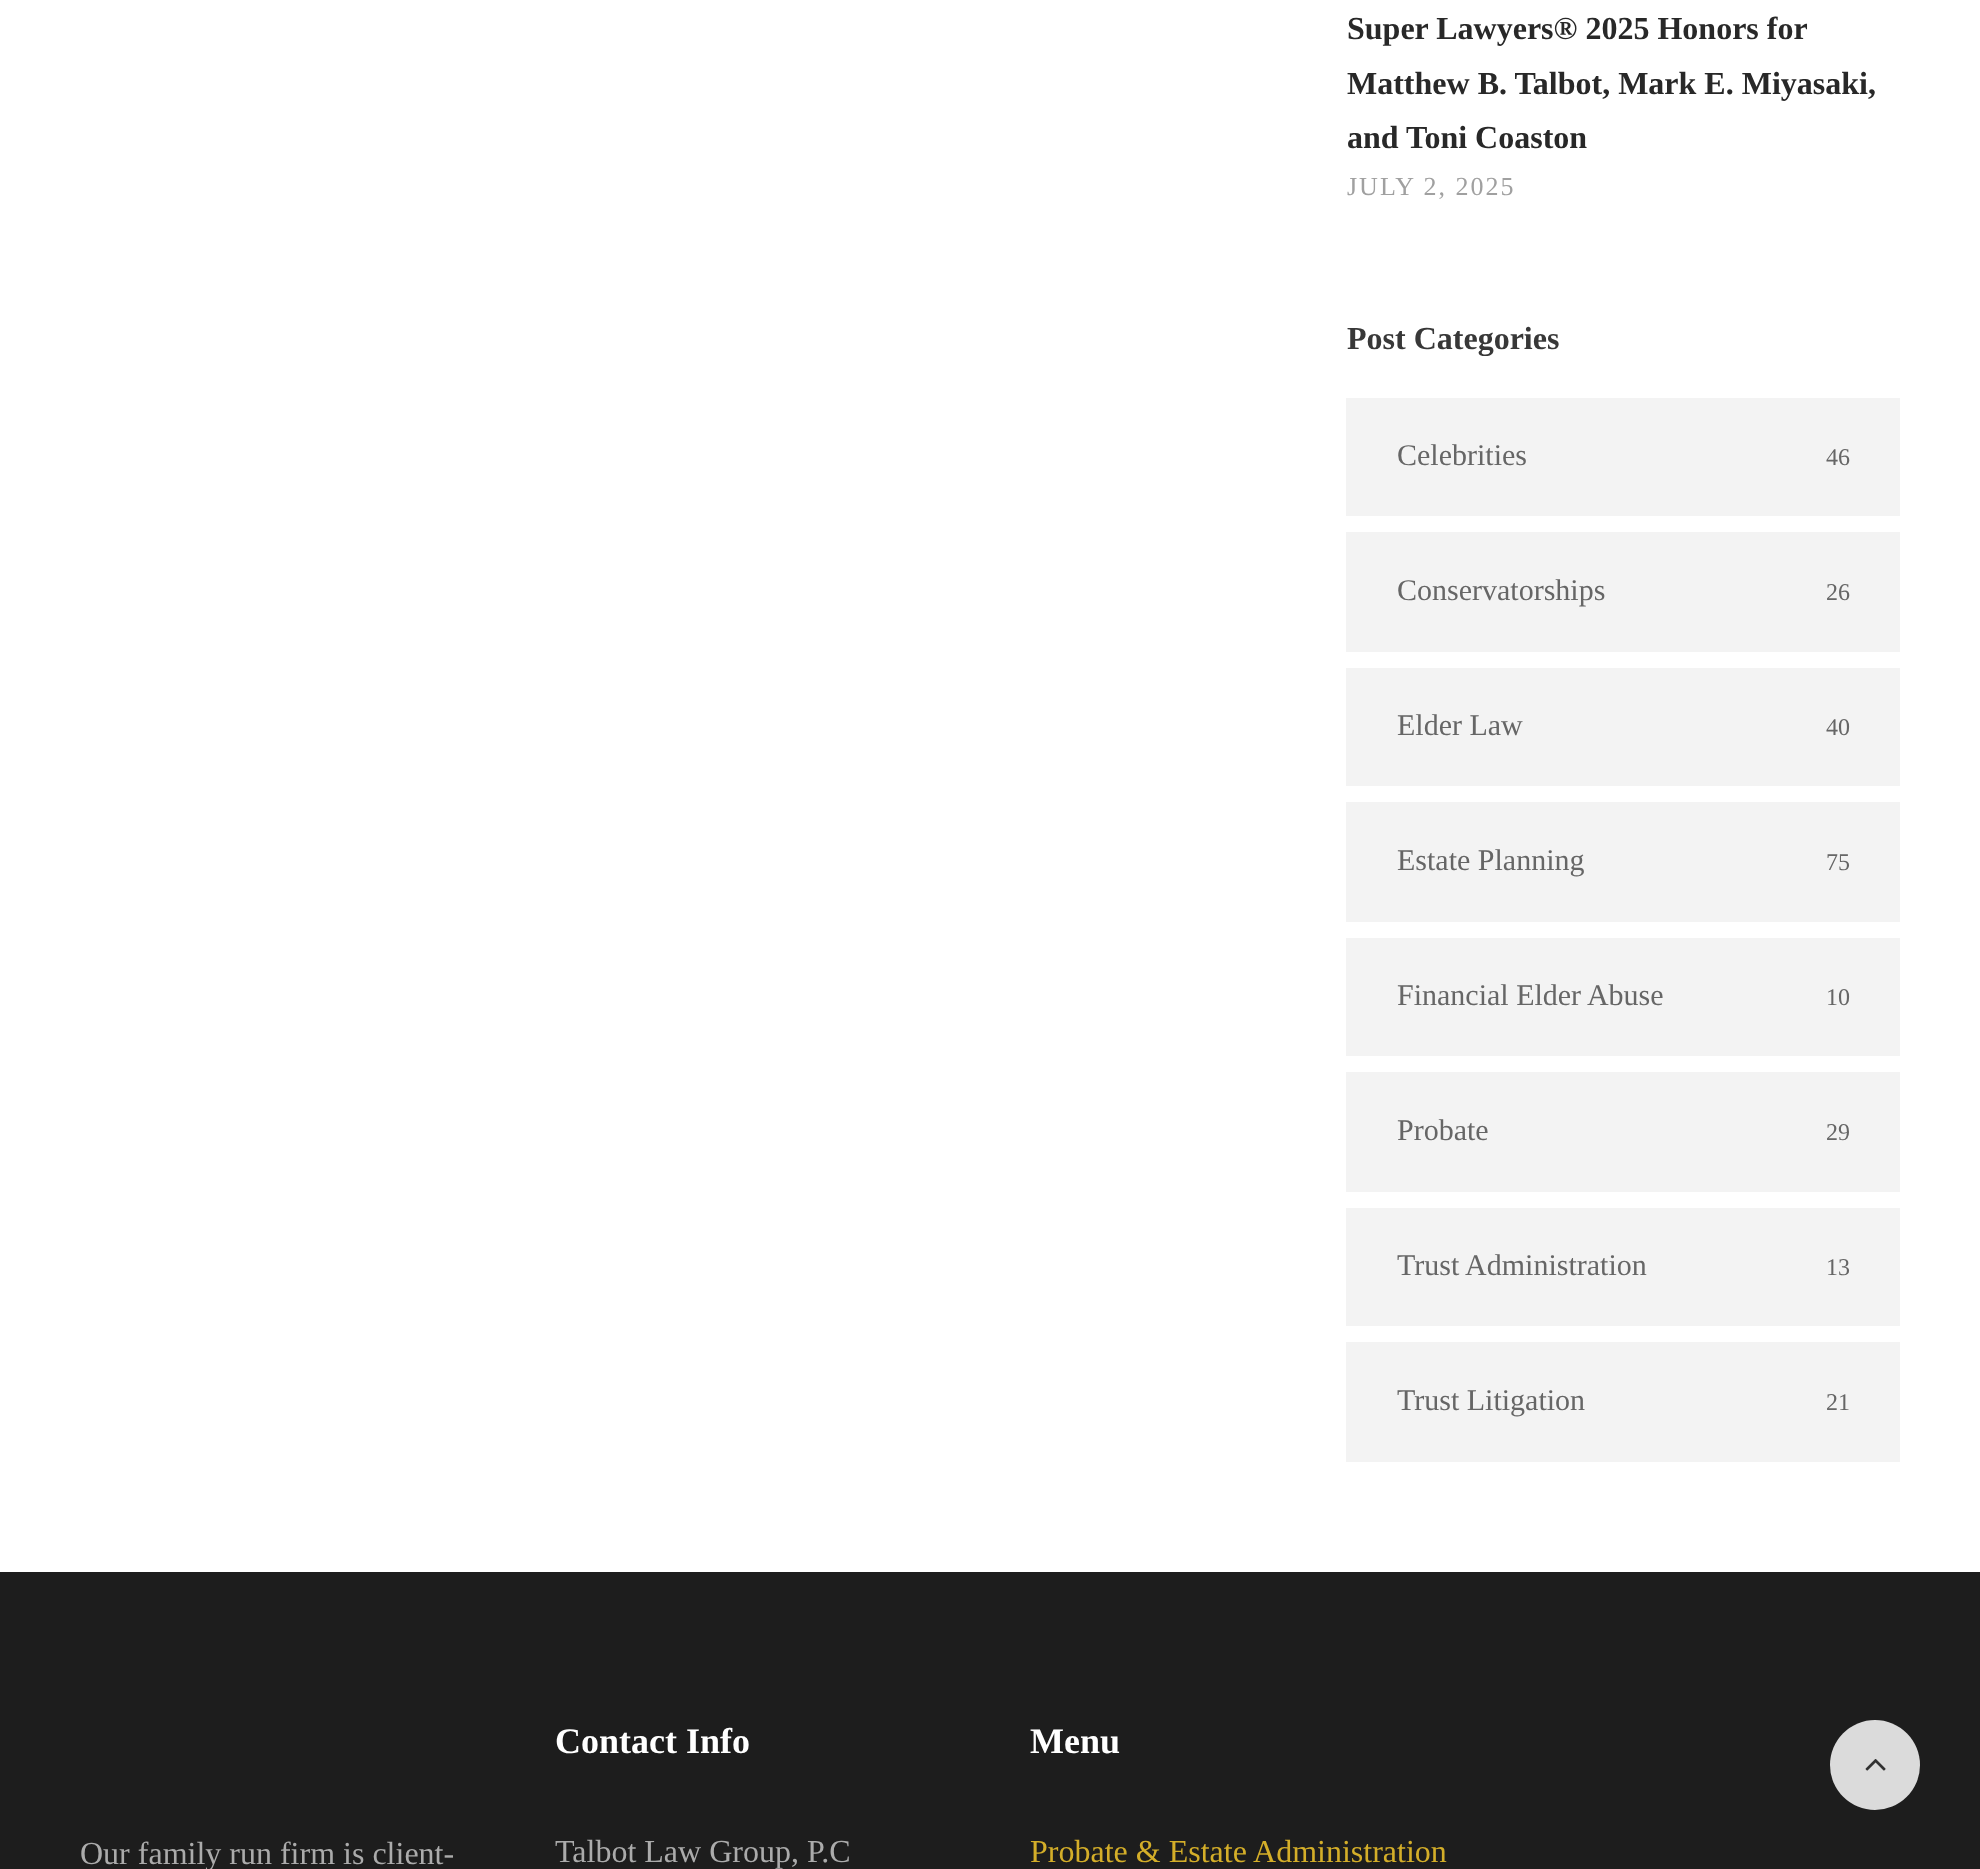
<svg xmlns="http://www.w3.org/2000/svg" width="1980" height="1869">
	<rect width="100%" height="100%" fill="#FFFFFF" />
	<g font-family="Liberation Serif" font-size="32" font-weight="700" fill="#282828">
		<text x="1347" y="39">Super Lawyers® 2025 Honors for</text>
		<text x="1347" y="94">Matthew B. Talbot, Mark E. Miyasaki,</text>
		<text x="1347" y="148">and Toni Coaston</text>
	</g>
	<text x="1347" y="195" font-family="Liberation Serif" font-size="26" letter-spacing="2" fill="#A0A0A0">JULY 2, 2025</text>
	<text x="1347" y="349" font-family="Liberation Serif" font-size="32" font-weight="700" fill="#383838">Post Categories</text>
	<rect x="1346" y="398" width="554" height="118" fill="#F3F3F3" />
	<text x="1397" y="465" font-family="Liberation Serif" font-size="30" fill="#666666">Celebrities</text>
	<text x="1826" y="465" font-family="Liberation Serif" font-size="24" fill="#666666">46</text>
	<rect x="1346" y="532" width="554" height="120" fill="#F3F3F3" />
	<text x="1397" y="600" font-family="Liberation Serif" font-size="30" fill="#666666">Conservatorships</text>
	<text x="1826" y="600" font-family="Liberation Serif" font-size="24" fill="#666666">26</text>
	<rect x="1346" y="668" width="554" height="118" fill="#F3F3F3" />
	<text x="1397" y="735" font-family="Liberation Serif" font-size="30" fill="#666666">Elder Law</text>
	<text x="1826" y="735" font-family="Liberation Serif" font-size="24" fill="#666666">40</text>
	<rect x="1346" y="802" width="554" height="120" fill="#F3F3F3" />
	<text x="1397" y="870" font-family="Liberation Serif" font-size="30" fill="#666666">Estate Planning</text>
	<text x="1826" y="870" font-family="Liberation Serif" font-size="24" fill="#666666">75</text>
	<rect x="1346" y="938" width="554" height="118" fill="#F3F3F3" />
	<text x="1397" y="1005" font-family="Liberation Serif" font-size="30" fill="#666666">Financial Elder Abuse</text>
	<text x="1826" y="1005" font-family="Liberation Serif" font-size="24" fill="#666666">10</text>
	<rect x="1346" y="1072" width="554" height="120" fill="#F3F3F3" />
	<text x="1397" y="1140" font-family="Liberation Serif" font-size="30" fill="#666666">Probate</text>
	<text x="1826" y="1140" font-family="Liberation Serif" font-size="24" fill="#666666">29</text>
	<rect x="1346" y="1208" width="554" height="118" fill="#F3F3F3" />
	<text x="1397" y="1275" font-family="Liberation Serif" font-size="30" fill="#666666">Trust Administration</text>
	<text x="1826" y="1275" font-family="Liberation Serif" font-size="24" fill="#666666">13</text>
	<rect x="1346" y="1342" width="554" height="120" fill="#F3F3F3" />
	<text x="1397" y="1410" font-family="Liberation Serif" font-size="30" fill="#666666">Trust Litigation</text>
	<text x="1826" y="1410" font-family="Liberation Serif" font-size="24" fill="#666666">21</text>
	<rect x="0" y="1572" width="1980" height="297" fill="#1D1D1D" />
	<text x="80" y="1864" font-family="Liberation Serif" font-size="32" fill="#ABABAB">Our family run firm is client-</text>
	<text x="555" y="1753" font-family="Liberation Serif" font-size="36" font-weight="700" fill="#FFFFFF">Contact Info</text>
	<text x="555" y="1862" font-family="Liberation Serif" font-size="32" fill="#ABABAB">Talbot Law Group, P.C</text>
	<text x="1030" y="1753" font-family="Liberation Serif" font-size="36" font-weight="700" fill="#FFFFFF">Menu</text>
	<text x="1030" y="1862" font-family="Liberation Serif" font-size="32" fill="#D4AE29">Probate &amp; Estate Administration</text>
	<circle cx="1875" cy="1765" r="45" fill="#DBDBDB" />
	<image x="1865" y="1759" width="21" height="12" href="assets/img1.png" />
</svg>
